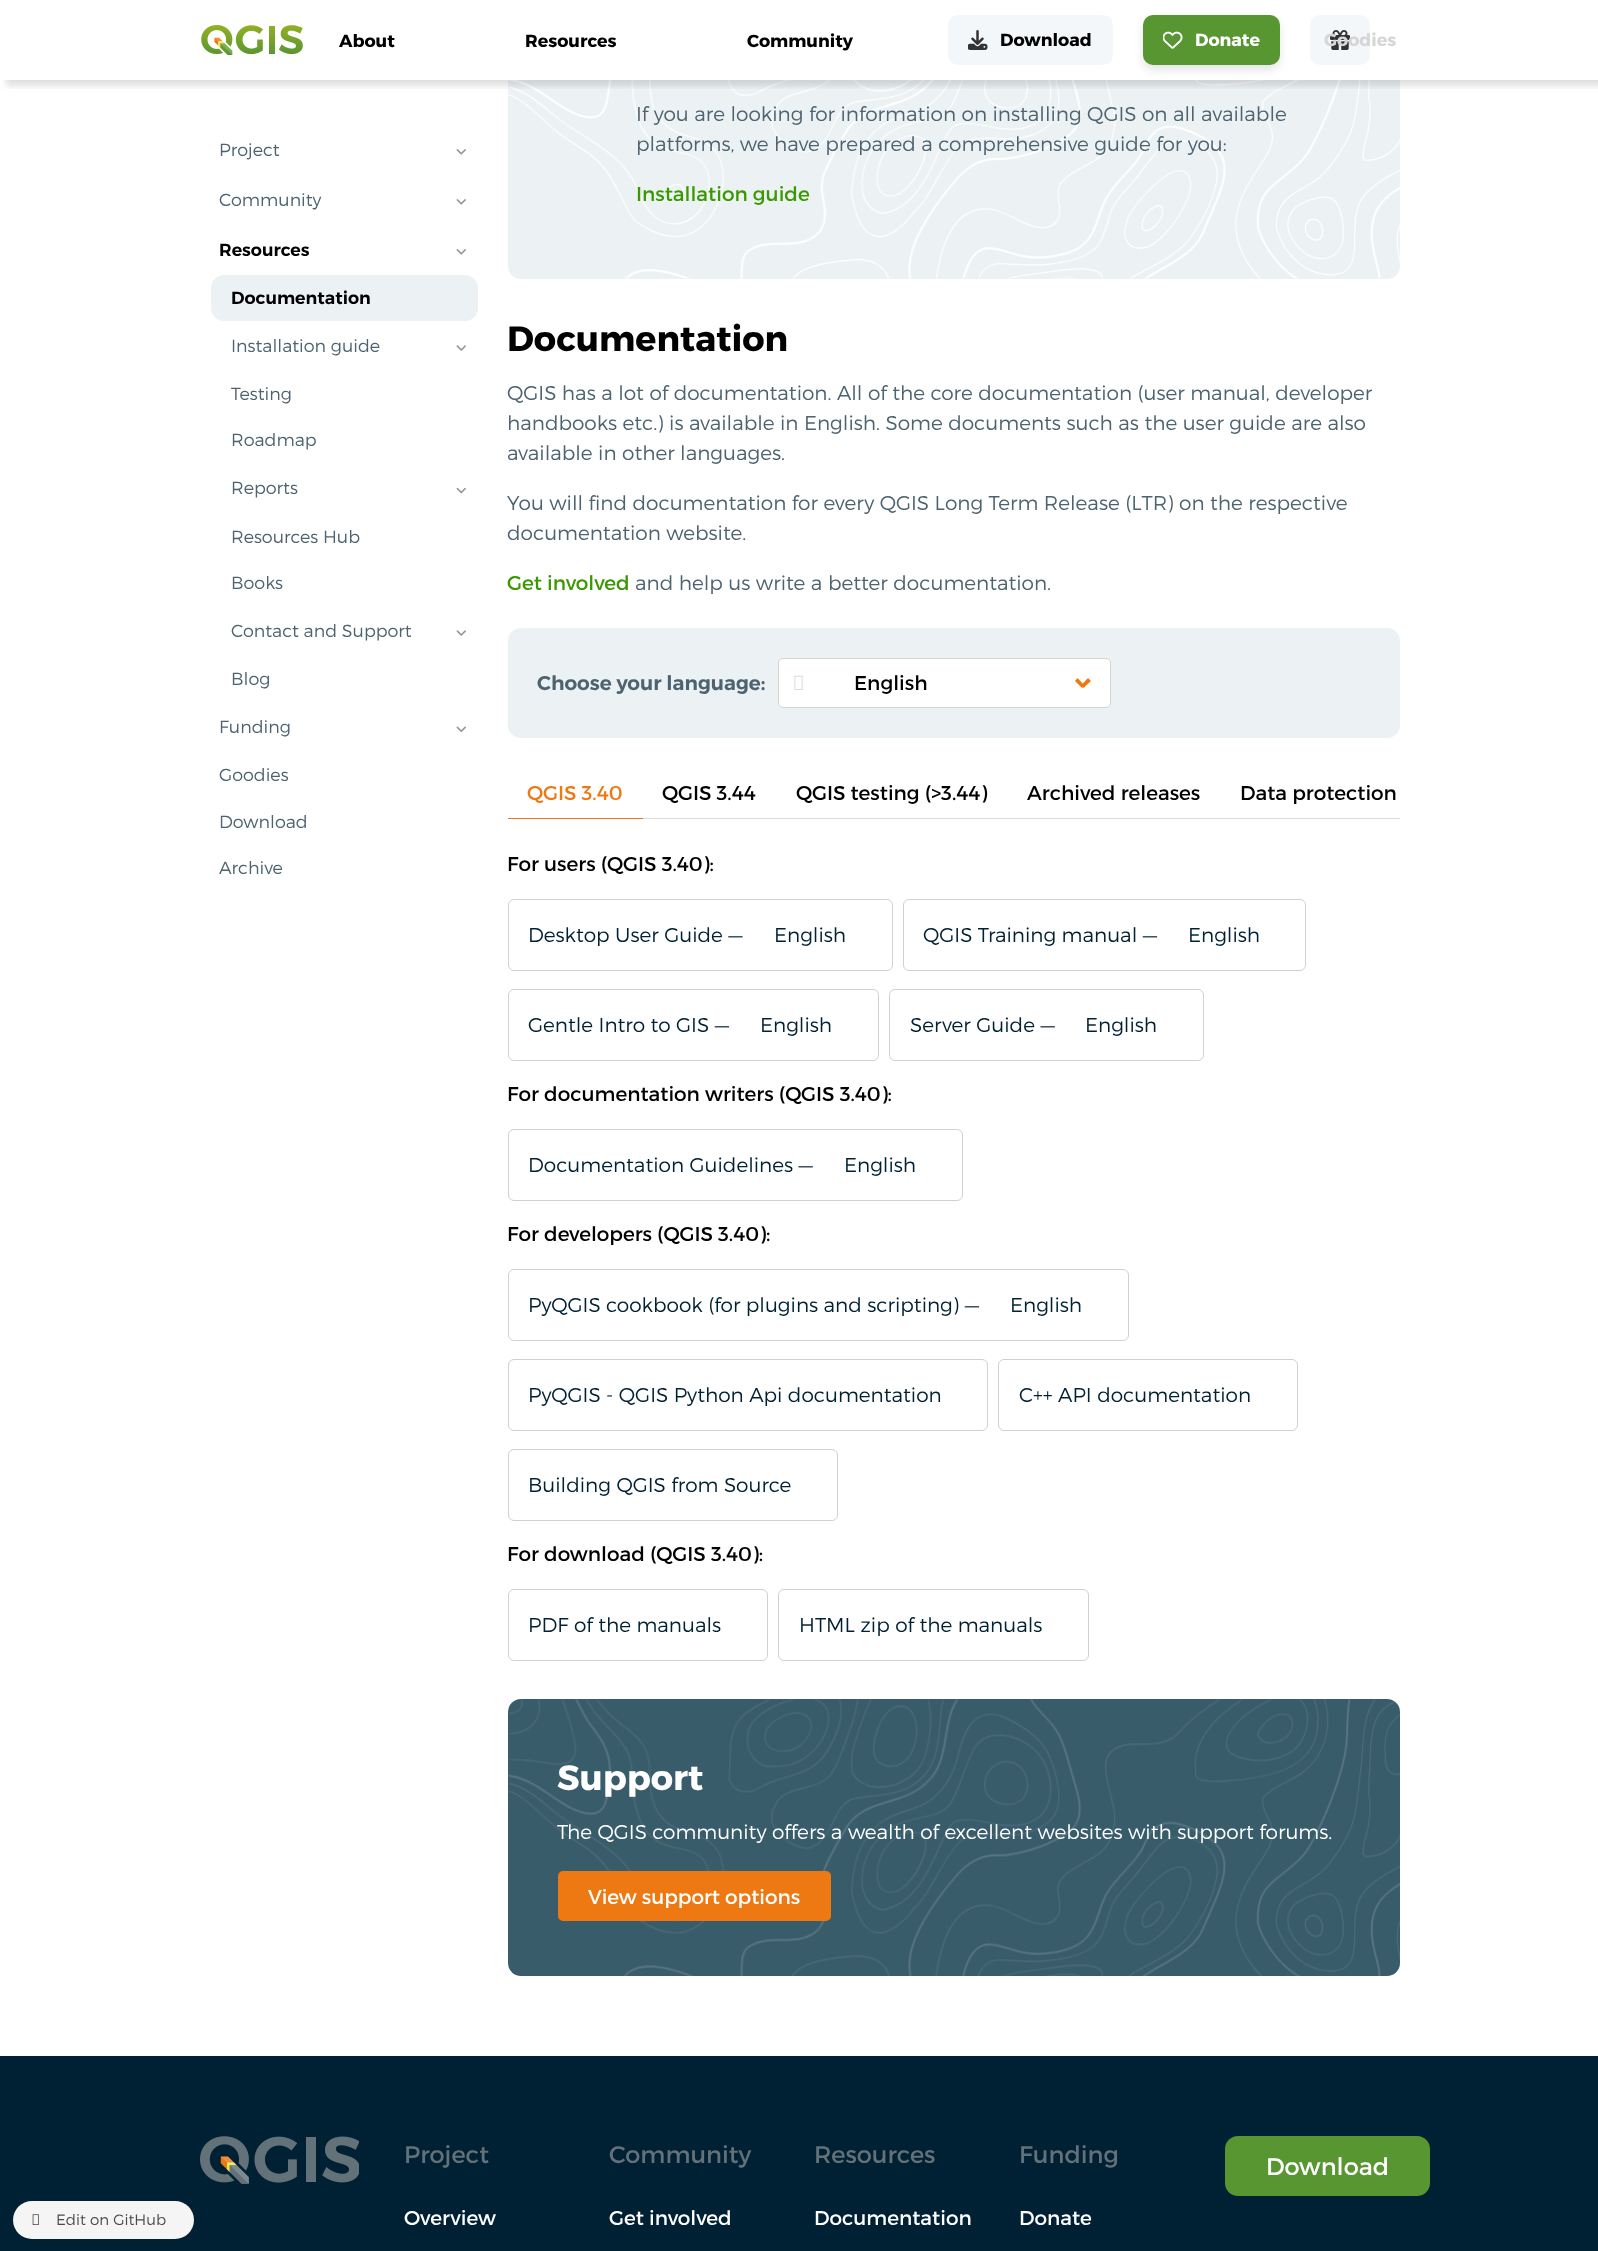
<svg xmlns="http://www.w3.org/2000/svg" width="1598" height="2251">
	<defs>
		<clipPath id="clip1"><rect x="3" y="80" width="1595" height="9" /></clipPath>
	</defs>
	<rect width="100%" height="100%" fill="#FFFFFF" />
	<rect x="508" y="3" width="892" height="276" rx="13" fill="#ECF1F4" />
	<rect x="508" y="3" width="892" height="77" fill="#FFFFFF" />
	<image x="508" y="80" width="892" height="199" href="assets/img9.png" />
	<g clip-path="url(#clip1)">
		<rect x="6" y="6" width="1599" height="80" fill="#000000" fill-opacity="0.12" filter="blur(3px)" />
	</g>
	<image x="201" y="25" width="102" height="30" href="assets/img1.png" />
	<g font-family="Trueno" font-size="17.5" font-weight="700" fill="#000000">
		<text x="339" y="47">About</text>
		<text x="525" y="47">Resources</text>
		<text x="747" y="47">Community</text>
	</g>
	<rect x="948" y="15" width="165" height="50" rx="10" fill="#F4F7F9" />
	<image x="968" y="30" width="20" height="20" href="assets/img2.png" />
	<text x="1000" y="46" font-family="Trueno" font-size="17.5" font-weight="700" fill="#000000">Download</text>
	<rect x="1143" y="20" width="137" height="50" rx="10" fill="#000000" fill-opacity="0.1" filter="blur(5px)" />
	<rect x="1143" y="15" width="137" height="50" rx="10" fill="#589632" />
	<image x="1163" y="31" width="20" height="18" href="assets/img3.png" />
	<text x="1195" y="46" font-family="Trueno" font-size="17.5" font-weight="700" fill="#FFFFFF">Donate</text>
	<rect x="1310" y="15" width="60" height="50" rx="10" fill="#F4F7F9" />
	<image x="1330" y="30" width="20" height="20" href="assets/img4.png" />
	<text x="1324" y="46" font-family="Trueno" font-size="17.5" font-weight="700" fill="#D5D6D7">Goodies</text>
	<text x="219" y="156" font-family="Trueno" font-size="17.5" font-weight="300" fill="#4D6370">Project</text>
	<image x="456" y="149" width="10" height="6" href="assets/img5.png" />
	<text x="219" y="206" font-family="Trueno" font-size="17.5" font-weight="300" fill="#4D6370">Community</text>
	<image x="456" y="199" width="10" height="6" href="assets/img5.png" />
	<text x="219" y="256" font-family="Trueno" font-size="17.5" font-weight="600" fill="#000000">Resources</text>
	<image x="456" y="249" width="10" height="6" href="assets/img5.png" />
	<rect x="211" y="275" width="267" height="46" rx="13" fill="#ECF1F4" />
	<text x="231" y="304" font-family="Trueno" font-size="17.5" font-weight="600" fill="#000000">Documentation</text>
	<text x="231" y="352" font-family="Trueno" font-size="17.5" font-weight="300" fill="#4D6370">Installation guide</text>
	<image x="456" y="345" width="10" height="6" href="assets/img6.png" />
	<g font-family="Trueno" font-size="17.5" font-weight="300" fill="#4D6370">
		<text x="231" y="400">Testing</text>
		<text x="231" y="446">Roadmap</text>
		<text x="231" y="494">Reports</text>
	</g>
	<image x="456" y="487" width="10" height="7" href="assets/img7.png" />
	<g font-family="Trueno" font-size="17.5" font-weight="300" fill="#4D6370">
		<text x="231" y="543">Resources Hub</text>
		<text x="231" y="589">Books</text>
		<text x="231" y="637">Contact and Support</text>
	</g>
	<image x="456" y="630" width="10" height="6" href="assets/img6.png" />
	<g font-family="Trueno" font-size="17.5" font-weight="300" fill="#4D6370">
		<text x="231" y="685">Blog</text>
		<text x="219" y="733">Funding</text>
	</g>
	<image x="456" y="726" width="10" height="6" href="assets/img8.png" />
	<g font-family="Trueno" font-size="17.5" font-weight="300" fill="#4D6370">
		<text x="219" y="781">Goodies</text>
		<text x="219" y="828">Download</text>
		<text x="219" y="874">Archive</text>
	</g>
	<g font-family="Trueno" font-size="20" font-weight="300" fill="#4D6370">
		<text x="636" y="121">If you are looking for information on installing QGIS on all available</text>
		<text x="636" y="151">platforms, we have prepared a comprehensive guide for you:</text>
	</g>
	<text x="636" y="201" font-family="Trueno" font-size="20" fill="#3A9800">Installation guide</text>
	<text x="507" y="351" font-family="Trueno" font-size="35" font-weight="700" fill="#000000">Documentation</text>
	<g font-family="Trueno" font-size="20" font-weight="300" fill="#4D6370">
		<text x="507" y="400">QGIS has a lot of documentation. All of the core documentation (user manual, developer</text>
		<text x="507" y="430">handbooks etc.) is available in English. Some documents such as the user guide are also</text>
		<text x="507" y="460">available in other languages.</text>
		<text x="507" y="510">You will find documentation for every QGIS Long Term Release (LTR) on the respective</text>
		<text x="507" y="540">documentation website.</text>
	</g>
	<text x="507" y="590" font-family="Trueno" font-size="20" fill="#3A9800">Get involved</text>
	<text x="635" y="590" font-family="Trueno" font-size="20" font-weight="300" fill="#4D6370">and help us write a better documentation.</text>
	<rect x="508" y="628" width="892" height="110" rx="13" fill="#ECF1F4" />
	<text x="537" y="690" font-family="Trueno" font-size="20" font-weight="600" fill="#4D6370">Choose your language:</text>
	<rect x="778.5" y="658.5" width="332" height="49" rx="4.5" fill="#FFFFFF" stroke="#D4D4D4" />
	<image x="794" y="675" width="9" height="15" href="assets/img10.png" />
	<text x="854" y="690" font-family="Trueno" font-size="20" fill="#000000">English</text>
	<path d="M1081 685.5L1088 678L1091 681L1083.5 688Z" fill="#EE7913" />
	<path d="M1075 681L1077.5 678L1084.5 685.5L1082 688Z" fill="#EE7913" />
	<rect x="643" y="818" width="757" height="1" fill="#DBDBDB" />
	<rect x="508" y="818" width="135" height="1" fill="#EE7913" />
	<text x="527" y="800" font-family="Trueno" font-size="20" fill="#EE7913">QGIS 3.40</text>
	<g font-family="Trueno" font-size="20" fill="#000000">
		<text x="662" y="800">QGIS 3.44</text>
		<text x="796" y="800">QGIS testing (&gt;3.44)</text>
		<text x="1027" y="800">Archived releases</text>
		<text x="1240" y="800">Data protection</text>
		<text x="507" y="871">For users (QGIS 3.40):</text>
	</g>
	<rect x="508.5" y="899.5" width="384" height="71" rx="5.5" fill="none" stroke="#CCD2D6" />
	<g font-family="Trueno" font-size="20" font-weight="300" fill="#002033">
		<text x="528" y="942">Desktop User Guide —</text>
		<text x="774" y="942">English</text>
	</g>
	<rect x="903.5" y="899.5" width="402" height="71" rx="5.5" fill="none" stroke="#CCD2D6" />
	<g font-family="Trueno" font-size="20" font-weight="300" fill="#002033">
		<text x="923" y="942">QGIS Training manual —</text>
		<text x="1188" y="942">English</text>
	</g>
	<rect x="508.5" y="989.5" width="370" height="71" rx="5.5" fill="none" stroke="#CCD2D6" />
	<g font-family="Trueno" font-size="20" font-weight="300" fill="#002033">
		<text x="528" y="1032">Gentle Intro to GIS —</text>
		<text x="760" y="1032">English</text>
	</g>
	<rect x="889.5" y="989.5" width="314" height="71" rx="5.5" fill="none" stroke="#CCD2D6" />
	<g font-family="Trueno" font-size="20" font-weight="300" fill="#002033">
		<text x="910" y="1032">Server Guide —</text>
		<text x="1085" y="1032">English</text>
	</g>
	<text x="507" y="1101" font-family="Trueno" font-size="20" fill="#000000">For documentation writers (QGIS 3.40):</text>
	<rect x="508.5" y="1129.5" width="454" height="71" rx="5.5" fill="none" stroke="#CCD2D6" />
	<g font-family="Trueno" font-size="20" font-weight="300" fill="#002033">
		<text x="528" y="1172">Documentation Guidelines —</text>
		<text x="844" y="1172">English</text>
	</g>
	<text x="507" y="1241" font-family="Trueno" font-size="20" fill="#000000">For developers (QGIS 3.40):</text>
	<rect x="508.5" y="1269.5" width="620" height="71" rx="5.5" fill="none" stroke="#CCD2D6" />
	<g font-family="Trueno" font-size="20" font-weight="300" fill="#002033">
		<text x="528" y="1312">PyQGIS cookbook (for plugins and scripting) —</text>
		<text x="1010" y="1312">English</text>
	</g>
	<rect x="508.5" y="1359.5" width="479" height="71" rx="5.5" fill="none" stroke="#CCD2D6" />
	<text x="528" y="1402" font-family="Trueno" font-size="20" font-weight="300" fill="#002033">PyQGIS - QGIS Python Api documentation</text>
	<rect x="998.5" y="1359.5" width="299" height="71" rx="5.5" fill="none" stroke="#CCD2D6" />
	<text x="1019" y="1402" font-family="Trueno" font-size="20" font-weight="300" fill="#002033">C++ API documentation</text>
	<rect x="508.5" y="1449.5" width="329" height="71" rx="5.5" fill="none" stroke="#CCD2D6" />
	<text x="528" y="1492" font-family="Trueno" font-size="20" font-weight="300" fill="#002033">Building QGIS from Source</text>
	<text x="507" y="1561" font-family="Trueno" font-size="20" fill="#000000">For download (QGIS 3.40):</text>
	<rect x="508.5" y="1589.5" width="259" height="71" rx="5.5" fill="none" stroke="#CCD2D6" />
	<text x="528" y="1632" font-family="Trueno" font-size="20" font-weight="300" fill="#002033">PDF of the manuals</text>
	<rect x="778.5" y="1589.5" width="310" height="71" rx="5.5" fill="none" stroke="#CCD2D6" />
	<text x="799" y="1632" font-family="Trueno" font-size="20" font-weight="300" fill="#002033">HTML zip of the manuals</text>
	<rect x="508" y="1699" width="892" height="277" rx="13" fill="#395C6B" />
	<image x="508" y="1699" width="892" height="277" href="assets/img11.png" />
	<text x="557" y="1790" font-family="Trueno" font-size="35" font-weight="700" fill="#FFFFFF">Support</text>
	<text x="557" y="1839" font-family="Trueno" font-size="20" font-weight="300" fill="#FFFFFF">The QGIS community offers a wealth of excellent websites with support forums.</text>
	<rect x="558" y="1871" width="273" height="50" rx="5" fill="#EE7913" />
	<text x="588" y="1904" font-family="Trueno" font-size="20" fill="#FFFFFF">View support options</text>
	<rect x="0" y="2056" width="1598" height="195" fill="#002033" />
	<rect x="13" y="2201" width="181" height="38" rx="19" fill="#F5F5F5" />
	<image x="32" y="2214" width="7" height="11" href="assets/img12.png" />
	<text x="56" y="2225" font-family="Trueno" font-size="15" font-weight="300" fill="#4A4A4A">Edit on GitHub</text>
	<image x="200" y="2136" width="159" height="48" href="assets/img13.png" />
	<text x="404" y="2163" font-family="Trueno" font-size="24" fill="#637179">Project</text>
	<text x="404" y="2225" font-family="Trueno" font-size="20" fill="#FFFFFF">Overview</text>
	<text x="609" y="2163" font-family="Trueno" font-size="24" fill="#637179">Community</text>
	<text x="609" y="2225" font-family="Trueno" font-size="20" fill="#FFFFFF">Get involved</text>
	<text x="814" y="2163" font-family="Trueno" font-size="24" fill="#637179">Resources</text>
	<text x="814" y="2225" font-family="Trueno" font-size="20" fill="#FFFFFF">Documentation</text>
	<text x="1019" y="2163" font-family="Trueno" font-size="24" fill="#637179">Funding</text>
	<text x="1019" y="2225" font-family="Trueno" font-size="20" fill="#FFFFFF">Donate</text>
	<rect x="1225" y="2136" width="205" height="60" rx="13" fill="#589632" />
	<text x="1266" y="2175" font-family="Trueno" font-size="24" fill="#FFFFFF">Download</text>
</svg>
